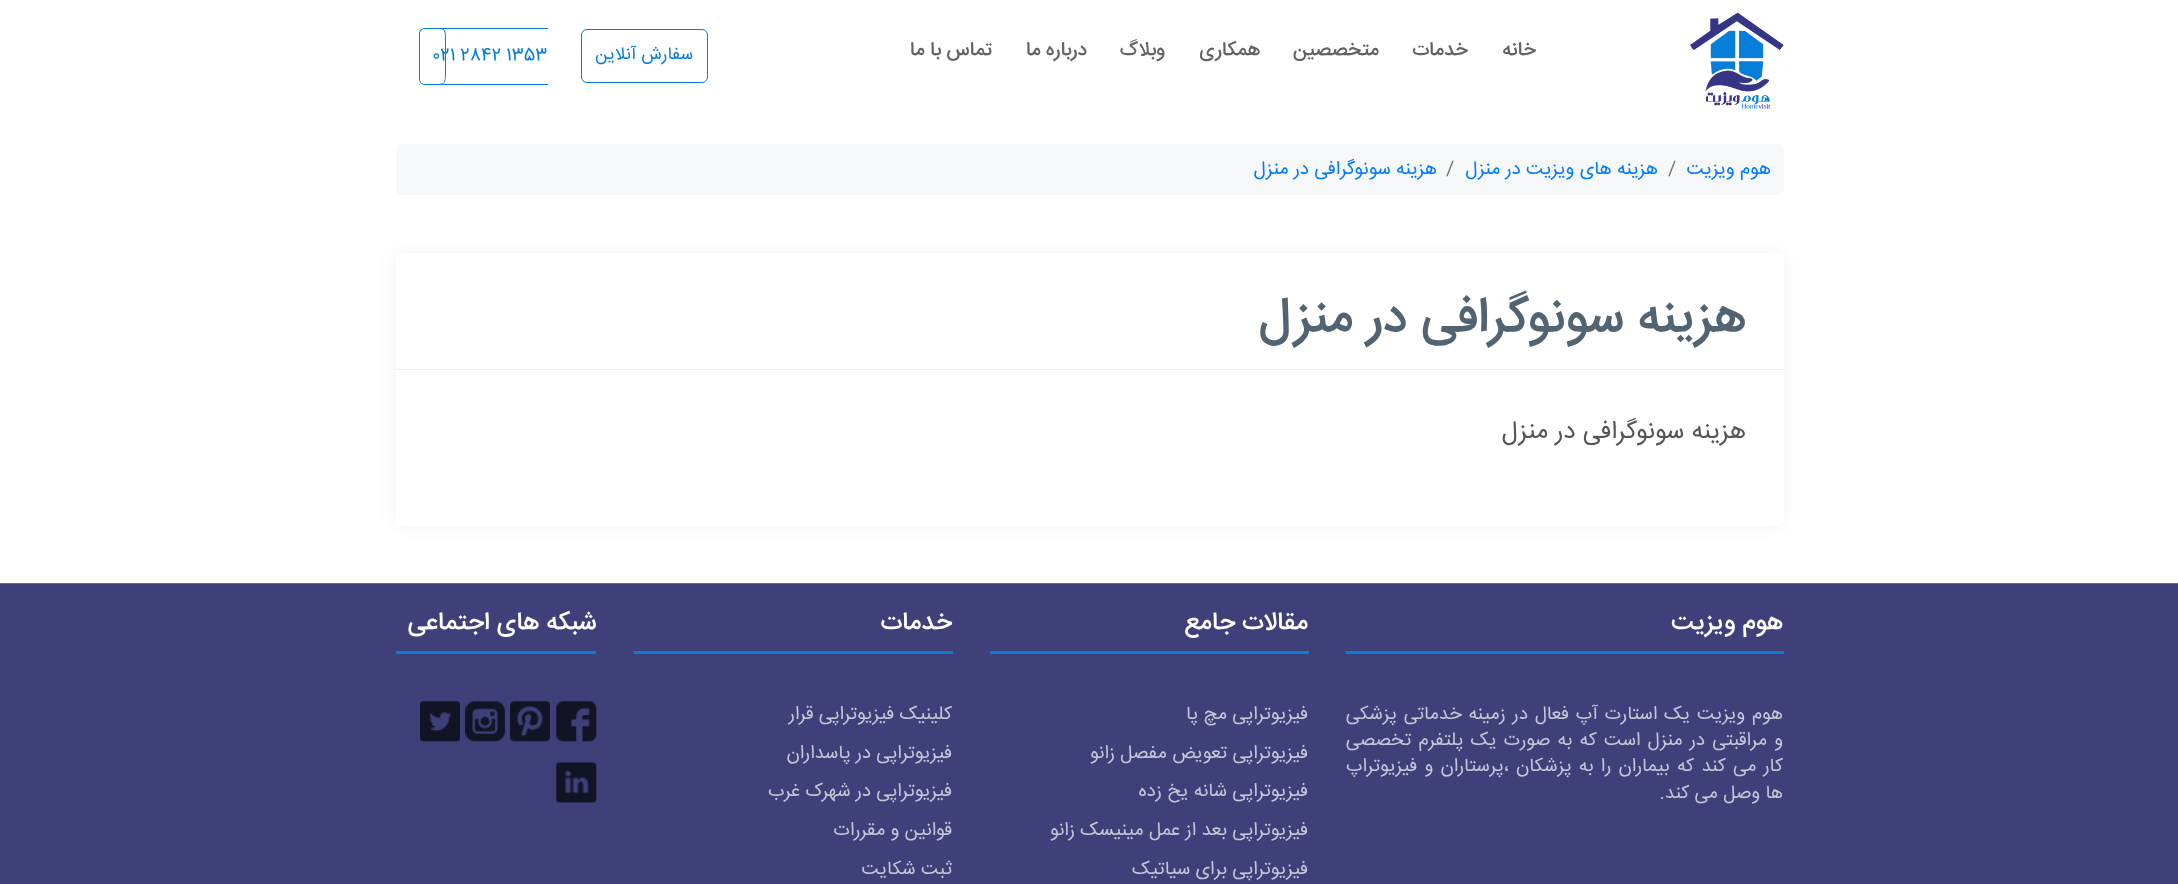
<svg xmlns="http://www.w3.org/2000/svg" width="2178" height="884">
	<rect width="100%" height="100%" fill="#FFFFFF" />
	<image x="1690" y="12" width="94" height="97" href="assets/img1.png" />
	<g font-family="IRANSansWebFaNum" font-size="19.5" font-weight="500" direction="rtl" fill="#636363">
		<text x="1536" y="55">خانه</text>
		<text x="1468" y="55">خدمات</text>
		<text x="1379" y="55">متخصصین</text>
		<text x="1260" y="55">همکاری</text>
		<text x="1165" y="55">وبلاگ</text>
		<text x="1087" y="55">درباره ما</text>
		<text x="992" y="55">تماس با ما</text>
	</g>
	<rect x="581.5" y="29.5" width="126" height="53" rx="5.5" fill="none" stroke="#077ED9" />
	<text x="693" y="59" font-family="IRANSansWebFaNum" font-size="17.5" direction="rtl" fill="#077ED9">سفارش آنلاین</text>
	<path d="M425 28H548V85H425C422 85 419 82 419 79V34C419 30 422 28 425 28ZM425 29H548V84H425C422 84 420 82 420 79V34C420 31 422 29 425 29Z" fill="#077ED9" fill-rule="evenodd" />
	<path d="M432 28C445 28 446 27 446 41V71C446 85 445 85 432 85ZM432 29C445 29 445 28 445 41V71C445 85 445 84 432 84Z" fill="#077ED9" fill-rule="evenodd" />
	<text x="432" y="60" font-family="IRANSansWebFaNum" font-size="17.5" fill="#077ED9">021 2842 1353</text>
	<rect x="396" y="144" width="1388" height="51" rx="5" fill="#F7F8F9" />
	<text x="1771" y="174" font-family="IRANSansWebFaNum" font-size="18.8" direction="rtl" fill="#007BFF">هوم ویزیت</text>
	<text x="1668" y="174" font-family="IRANSansWebFaNum" font-size="18.8" fill="#6C757D">/</text>
	<text x="1658" y="174" font-family="IRANSansWebFaNum" font-size="18.8" direction="rtl" fill="#007BFF">هزینه های ویزیت در منزل</text>
	<text x="1446" y="174" font-family="IRANSansWebFaNum" font-size="18.8" fill="#6C757D">/</text>
	<text x="1437" y="174" font-family="IRANSansWebFaNum" font-size="18.8" direction="rtl" fill="#007BFF">هزینه سونوگرافی در منزل</text>
	<rect x="396" y="253" width="1388" height="273" rx="6" fill="#000000" fill-opacity="0.05" filter="blur(9.5px)" />
	<rect x="396" y="253" width="1388" height="273" rx="6" fill="#FFFFFF" />
	<text x="1746" y="331" font-family="IRANSansWebFaNum" font-size="50" font-weight="500" direction="rtl" fill="#526371">هزینه سونوگرافی در منزل</text>
	<rect x="396" y="369" width="1388" height="1" fill="#EDEDED" />
	<text x="1746" y="438" font-family="IRANSansWebFaNum" font-size="25" direction="rtl" fill="#555555">هزینه سونوگرافی در منزل</text>
	<rect x="0" y="584" width="2178" height="300" fill="#3F4079" />
	<rect x="0" y="583" width="2178" height="1" fill="#6F6F6F" />
	<rect x="1346" y="651" width="438" height="3" fill="#077ED9" />
	<text x="1783" y="629" font-family="IRANSansWebFaNum" font-size="25" font-weight="500" direction="rtl" fill="#FFFFFF">هوم ویزیت</text>
	<g font-family="IRANSansWebFaNum" font-size="18.8" direction="rtl" fill="#C5C6D7">
		<text x="1783" y="719" word-spacing="1.5">هوم ویزیت یک استارت آپ فعال در زمینه خدماتی پزشکی</text>
		<text x="1783" y="745" word-spacing="1.9">و مراقبتی در منزل است که به صورت یک پلتفرم تخصصی</text>
		<text x="1783" y="771" word-spacing="1.9">کار می کند که بیماران را به پزشکان ،پرستاران و فیزیوتراپ</text>
		<text x="1783" y="798">ها وصل می کند.</text>
	</g>
	<rect x="990" y="651" width="319" height="3" fill="#077ED9" />
	<text x="1308" y="629" font-family="IRANSansWebFaNum" font-size="25" font-weight="500" direction="rtl" fill="#FFFFFF">مقالات جامع</text>
	<g font-family="IRANSansWebFaNum" font-size="18.8" direction="rtl" fill="#C5C6D7">
		<text x="1308" y="719">فیزیوتراپی مچ پا</text>
		<text x="1308" y="758">فیزیوتراپی تعویض مفصل زانو</text>
		<text x="1308" y="796">فیزیوتراپی شانه یخ زده</text>
		<text x="1308" y="835">فیزیوتراپی بعد از عمل مینیسک زانو</text>
		<text x="1308" y="874">فیزیوتراپی برای سیاتیک</text>
	</g>
	<rect x="634" y="651" width="319" height="3" fill="#077ED9" />
	<text x="952" y="629" font-family="IRANSansWebFaNum" font-size="25" font-weight="500" direction="rtl" fill="#FFFFFF">خدمات</text>
	<g font-family="IRANSansWebFaNum" font-size="18.8" direction="rtl" fill="#C5C6D7">
		<text x="952" y="719">کلینیک فیزیوتراپی قرار</text>
		<text x="952" y="758">فیزیوتراپی در پاسداران</text>
		<text x="952" y="796">فیزیوتراپی در شهرک غرب</text>
		<text x="952" y="835">قوانین و مقررات</text>
		<text x="952" y="874">ثبت شکایت</text>
	</g>
	<rect x="396" y="651" width="200" height="3" fill="#077ED9" />
	<text x="596" y="629" font-family="IRANSansWebFaNum" font-size="25" font-weight="500" direction="rtl" fill="#FFFFFF">شبکه های اجتماعی</text>
	<image x="556" y="701" width="41" height="41" href="assets/img2.png" />
	<image x="510" y="701" width="40" height="41" href="assets/img3.png" />
	<image x="465" y="701" width="40" height="41" href="assets/img4.png" />
	<image x="420" y="701" width="40" height="41" href="assets/img5.png" />
	<image x="556" y="762" width="41" height="41" href="assets/img6.png" />
</svg>
